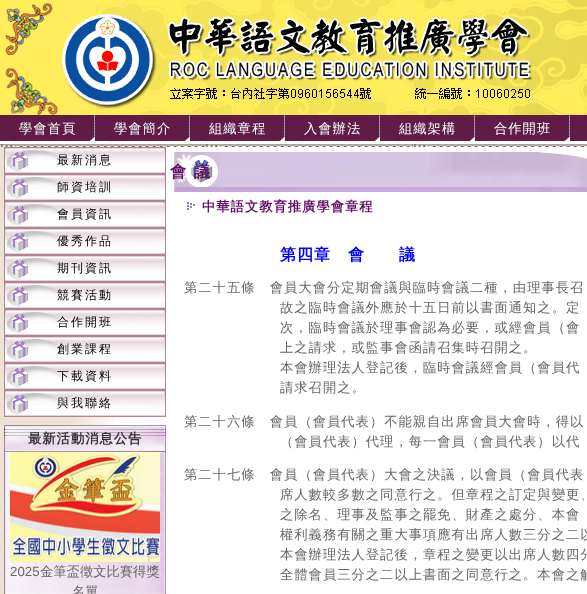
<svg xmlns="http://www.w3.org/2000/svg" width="587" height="594">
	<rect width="100%" height="100%" fill="#FFFFFF" />
	<image x="0" y="0" width="587" height="115" href="assets/img1.png" />
	<image x="0" y="142" width="587" height="5" href="assets/img2.png" />
	<image x="0" y="115" width="95" height="27" href="assets/img3.png" />
	<text x="19" y="133" font-family="WenQuanYi Zen Hei" font-size="13.3" font-weight="500" letter-spacing="1" fill="#FFFFFF">學會首頁</text>
	<image x="95" y="115" width="95" height="27" href="assets/img3.png" />
	<text x="114" y="133" font-family="WenQuanYi Zen Hei" font-size="13.3" font-weight="500" letter-spacing="1" fill="#FFFFFF">學會簡介</text>
	<image x="190" y="115" width="95" height="27" href="assets/img3.png" />
	<text x="209" y="133" font-family="WenQuanYi Zen Hei" font-size="13.3" font-weight="500" letter-spacing="1" fill="#FFFFFF">組織章程</text>
	<image x="285" y="115" width="95" height="27" href="assets/img3.png" />
	<text x="304" y="133" font-family="WenQuanYi Zen Hei" font-size="13.3" font-weight="500" letter-spacing="1" fill="#FFFFFF">入會辦法</text>
	<image x="380" y="115" width="95" height="27" href="assets/img3.png" />
	<text x="399" y="133" font-family="WenQuanYi Zen Hei" font-size="13.3" font-weight="500" letter-spacing="1" fill="#FFFFFF">組織架構</text>
	<image x="475" y="115" width="95" height="27" href="assets/img3.png" />
	<text x="494" y="133" font-family="WenQuanYi Zen Hei" font-size="13.3" font-weight="500" letter-spacing="1" fill="#FFFFFF">合作開班</text>
	<image x="570" y="115" width="17" height="27" href="assets/img4.png" />
	<image x="0" y="147" width="114" height="447" href="assets/img5.png" />
	<image x="4" y="147" width="162" height="27" href="assets/img6.png" />
	<text x="57" y="164" font-family="WenQuanYi Zen Hei" font-size="12" font-weight="500" letter-spacing="2" fill="#000000">最新消息</text>
	<image x="4" y="174" width="162" height="27" href="assets/img6.png" />
	<text x="57" y="191" font-family="WenQuanYi Zen Hei" font-size="12" font-weight="500" letter-spacing="2" fill="#000000">師資培訓</text>
	<image x="4" y="201" width="162" height="27" href="assets/img6.png" />
	<text x="57" y="218" font-family="WenQuanYi Zen Hei" font-size="12" font-weight="500" letter-spacing="2" fill="#000000">會員資訊</text>
	<image x="4" y="228" width="162" height="27" href="assets/img6.png" />
	<text x="57" y="245" font-family="WenQuanYi Zen Hei" font-size="12" font-weight="500" letter-spacing="2" fill="#000000">優秀作品</text>
	<image x="4" y="255" width="162" height="27" href="assets/img6.png" />
	<text x="57" y="272" font-family="WenQuanYi Zen Hei" font-size="12" font-weight="500" letter-spacing="2" fill="#000000">期刊資訊</text>
	<image x="4" y="282" width="162" height="27" href="assets/img6.png" />
	<text x="57" y="299" font-family="WenQuanYi Zen Hei" font-size="12" font-weight="500" letter-spacing="2" fill="#000000">競賽活動</text>
	<image x="4" y="309" width="162" height="27" href="assets/img6.png" />
	<text x="57" y="326" font-family="WenQuanYi Zen Hei" font-size="12" font-weight="500" letter-spacing="2" fill="#000000">合作開班</text>
	<image x="4" y="336" width="162" height="27" href="assets/img6.png" />
	<text x="57" y="353" font-family="WenQuanYi Zen Hei" font-size="12" font-weight="500" letter-spacing="2" fill="#000000">創業課程</text>
	<image x="4" y="363" width="162" height="27" href="assets/img6.png" />
	<text x="57" y="380" font-family="WenQuanYi Zen Hei" font-size="12" font-weight="500" letter-spacing="2" fill="#000000">下載資料</text>
	<image x="4" y="390" width="162" height="27" href="assets/img6.png" />
	<text x="57" y="407" font-family="WenQuanYi Zen Hei" font-size="12" font-weight="500" letter-spacing="2" fill="#000000">與我聯絡</text>
	<image x="4" y="425" width="162" height="27" href="assets/img7.png" />
	<text x="28" y="443" font-family="WenQuanYi Zen Hei" font-size="13.3" font-weight="700" letter-spacing="1" fill="#333333">最新活動消息公告</text>
	<image x="4" y="452" width="162" height="142" href="assets/img8.png" />
	<image x="10" y="452" width="150" height="110" href="assets/img9.png" />
	<text x="10" y="576" font-family="Liberation Sans" font-size="13.3" fill="#666666">2025</text>
	<g font-family="WenQuanYi Zen Hei" font-size="13.3" font-weight="500" fill="#666666">
		<text x="40" y="576">金筆盃徵文比賽得獎</text>
		<text x="72" y="596">名單</text>
	</g>
	<image x="174" y="152" width="413" height="40" href="assets/img10.png" />
	<text x="170" y="177" font-family="WenQuanYi Zen Hei" font-size="16" font-weight="700" letter-spacing="8" fill="#641069">會議</text>
	<image x="187" y="202" width="8" height="8" href="assets/img11.png" />
	<text x="202" y="211" font-family="WenQuanYi Zen Hei" font-size="13.3" font-weight="700" letter-spacing="1" fill="#641069">中華語文教育推廣學會章程</text>
	<text x="280" y="260" font-family="WenQuanYi Zen Hei" font-size="16" font-weight="700" letter-spacing="1" fill="#0000FF">第四章　會　　議</text>
	<g font-family="WenQuanYi Zen Hei" font-size="13.3" font-weight="500" letter-spacing="1" fill="#666666">
		<text x="184" y="292">第二十五條　會員大會分定期會議與臨時會議二種，由理事長召</text>
		<text x="280" y="312">故之臨時會議外應於十五日前以書面通知之。定</text>
		<text x="280" y="332">次，臨時會議於理事會認為必要，或經會員（會</text>
		<text x="280" y="352">上之請求，或監事會函請召集時召開之。</text>
		<text x="280" y="372">本會辦理法人登記後，臨時會議經會員（會員代</text>
		<text x="280" y="392">請求召開之。</text>
		<text x="184" y="426">第二十六條　會員（會員代表）不能親自出席會員大會時，得以</text>
		<text x="280" y="446">（會員代表）代理，每一會員（會員代表）以代</text>
		<text x="184" y="479">第二十七條　會員（會員代表）大會之決議，以會員（會員代表</text>
		<text x="280" y="499">席人數較多數之同意行之。但章程之訂定與變更、</text>
		<text x="280" y="519">之除名、理事及監事之罷免、財產之處分、本會</text>
		<text x="280" y="539">權利義務有關之重大事項應有出席人數三分之二以</text>
		<text x="280" y="559">本會辦理法人登記後，章程之變更以出席人數四分</text>
		<text x="280" y="579">全體會員三分之二以上書面之同意行之。本會之解</text>
	</g>
</svg>
